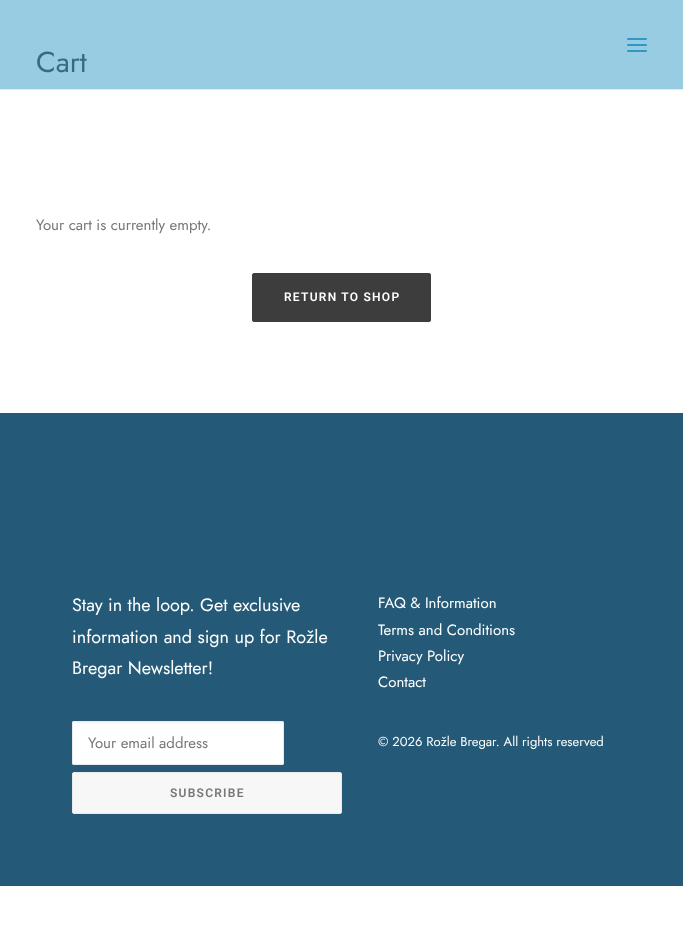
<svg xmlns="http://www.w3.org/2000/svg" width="683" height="951">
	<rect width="100%" height="100%" fill="#FFFFFF" />
	<rect x="0" y="0" width="683" height="89" fill="#98CCE2" />
	<rect x="0" y="89" width="683" height="1" fill="#EAEAEA" />
	<rect x="627" y="44" width="20" height="2" rx="1" fill="#3198C4" />
	<rect x="627" y="38" width="20" height="2" rx="1" fill="#3198C4" />
	<rect x="627" y="50" width="20" height="2" rx="1" fill="#3198C4" />
	<text x="36" y="72" font-family="Jost" font-size="29" fill="#376B81">Cart</text>
	<text x="36" y="230" font-family="Jost" font-size="15" fill="#777777">Your cart is currently empty.</text>
	<rect x="252.5" y="273.5" width="178" height="48" rx="1.5" fill="#3D3D3D" stroke="#3D3D3D" />
	<text x="284" y="301" font-family="Roboto" font-size="12" font-weight="600" letter-spacing="1.25" fill="#FFFFFF">RETURN TO SHOP</text>
	<rect x="0" y="413" width="683" height="473" fill="#245A77" />
	<g font-family="Jost" font-size="18" fill="#FFFFFF">
		<text x="72" y="611">Stay in the loop. Get exclusive</text>
		<text x="72" y="643">information and sign up for Rožle</text>
		<text x="72" y="674">Bregar Newsletter!</text>
	</g>
	<rect x="72" y="721" width="212" height="44" rx="2" fill="#FFFFFF" />
	<path d="M74 724H283V725V723C283 722 283 722 282 722H74C73 722 73 722 73 723V725C73 724 73 724 74 724Z" fill="#F9F9F9" />
	<rect x="72.5" y="721.5" width="211" height="43" rx="1.5" fill="none" stroke="#EAEAEA" />
	<text x="88" y="748" font-family="Jost" font-size="15" fill="#777777">Your email address</text>
	<rect x="72.5" y="772.5" width="269" height="41" rx="1.5" fill="#F7F7F7" stroke="#EAEAEA" />
	<text x="170" y="797" font-family="Roboto" font-size="12" font-weight="600" letter-spacing="1.25" fill="#777777">SUBSCRIBE</text>
	<g font-family="Jost" font-size="15" fill="#FFFFFF">
		<text x="378" y="608">FAQ &amp; Information</text>
		<text x="378" y="635">Terms and Conditions</text>
		<text x="378" y="661">Privacy Policy</text>
		<text x="378" y="687">Contact</text>
	</g>
	<text x="378" y="746" font-family="Jost" font-size="13" fill="#FFFFFF">© 2026 Rožle Bregar. All rights reserved</text>
</svg>
